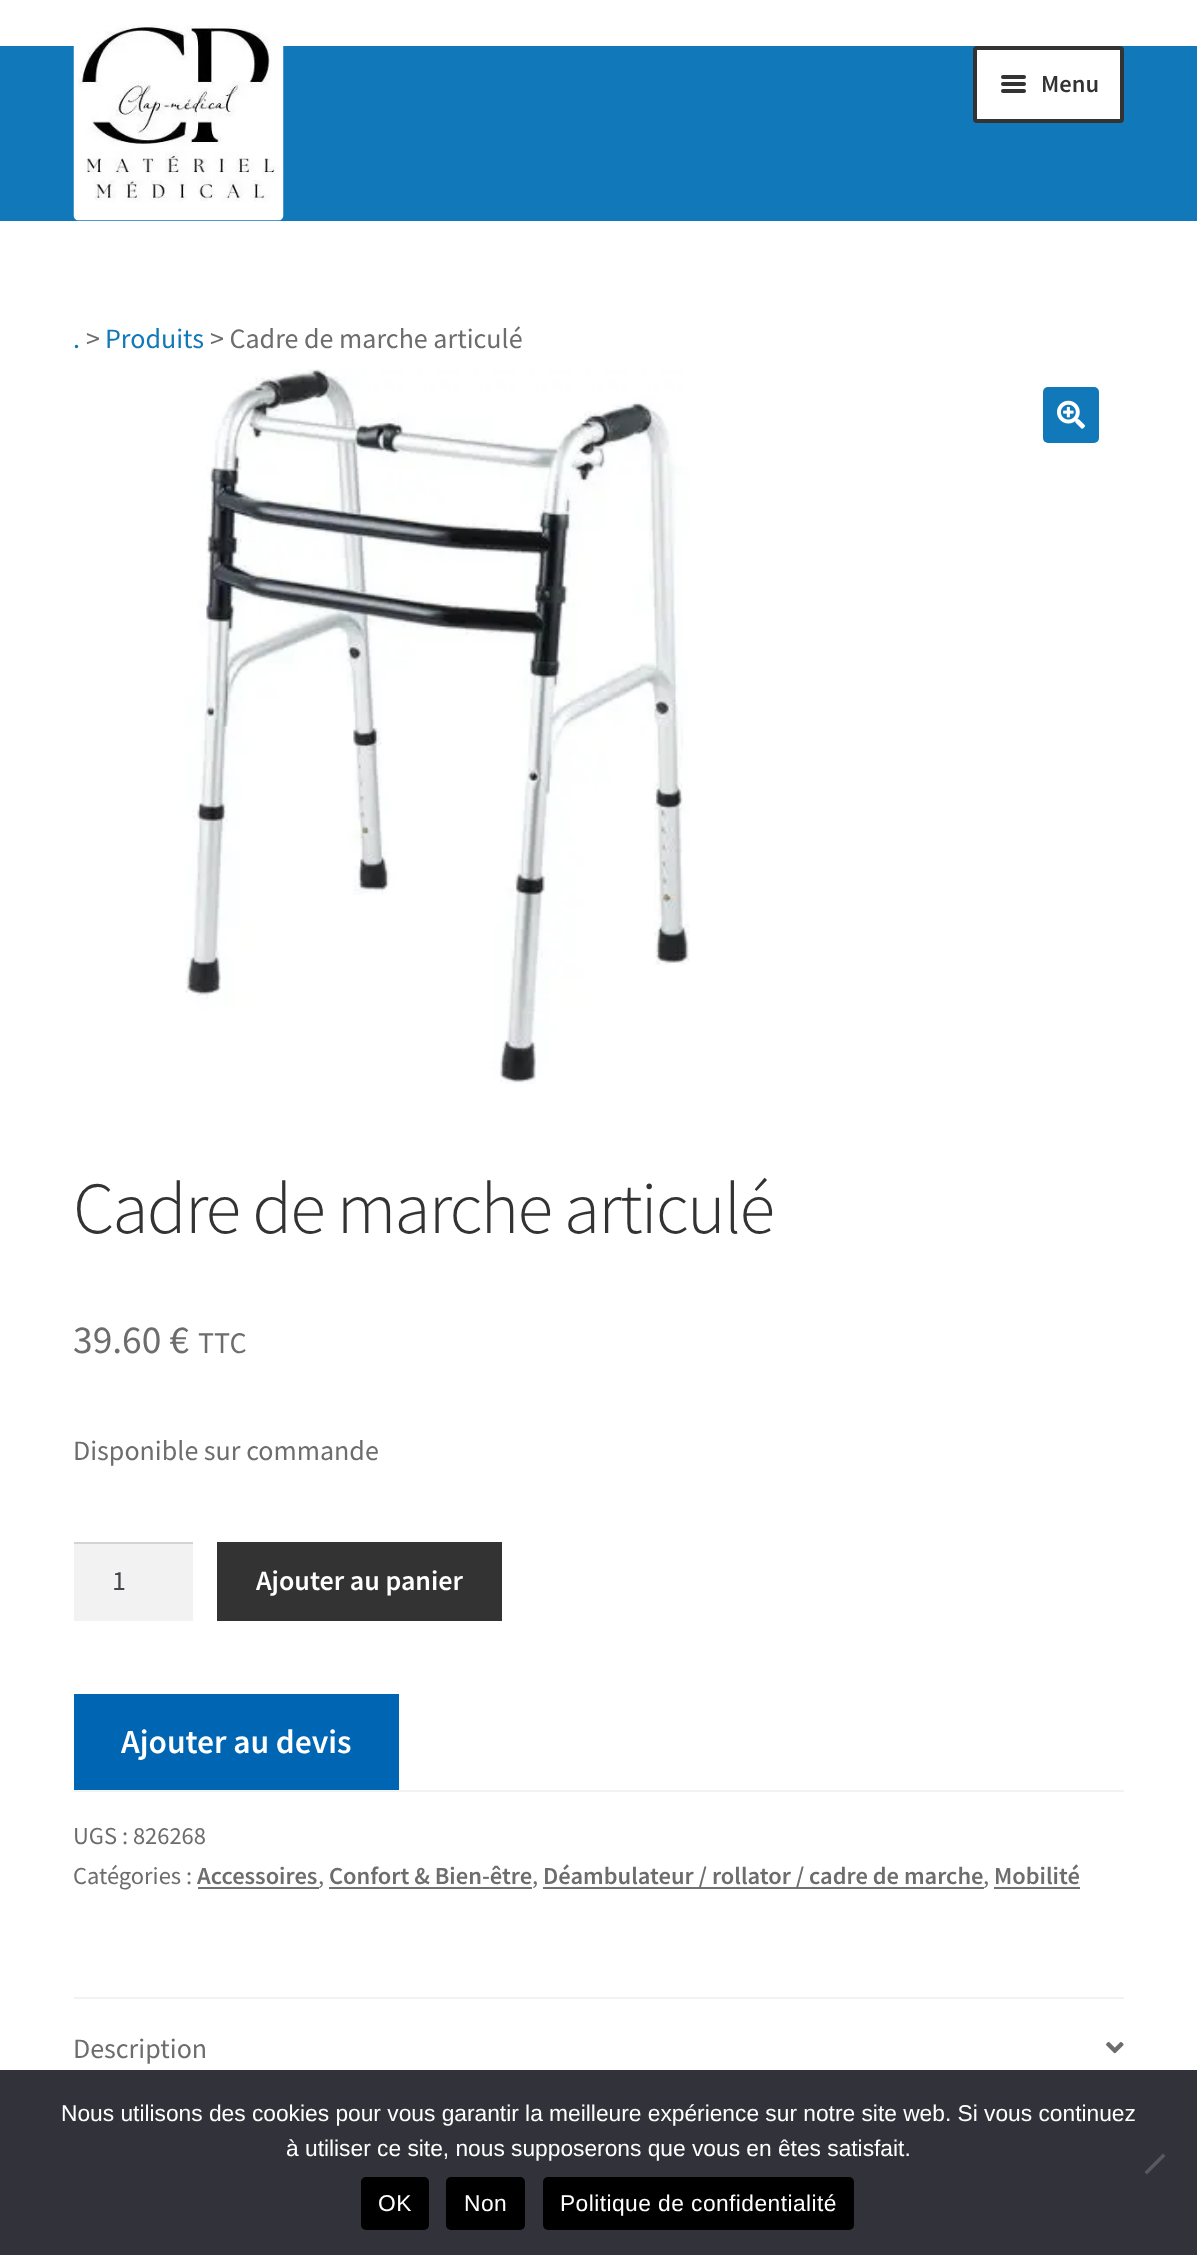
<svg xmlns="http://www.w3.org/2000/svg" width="1197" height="2255">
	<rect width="100%" height="100%" fill="#FFFFFF" />
	<rect x="0" y="46" width="1197" height="175" fill="#1179B9" />
	<image x="73" y="25" width="211" height="196" href="assets/img1.png" />
	<rect x="975" y="48" width="147" height="73" rx="2" fill="#FFFFFF" stroke="#333333" stroke-width="4" />
	<rect x="1001" y="75" width="25" height="4" rx="2" fill="#333333" />
	<rect x="1001" y="82" width="25" height="4" rx="2" fill="#333333" />
	<text x="1041" y="92" font-family="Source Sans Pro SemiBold" font-size="24.5" font-weight="600" fill="#333333">Menu</text>
	<rect x="1001" y="89" width="25" height="4" rx="2" fill="#333333" />
	<text x="86" y="348" font-family="Source Sans Pro" font-size="28" fill="#6D6D6D">&gt;</text>
	<text x="105" y="348" font-family="Source Sans Pro" font-size="28" fill="#1179B9">Produits</text>
	<text x="210" y="348" font-family="Source Sans Pro" font-size="28" fill="#6D6D6D">&gt; Cadre de marche articulé</text>
	<text x="73" y="348" font-family="Source Sans Pro" font-size="28" fill="#1179B9">.</text>
	<image x="185" y="369" width="505" height="715" href="assets/img2.png" />
	<rect x="1043" y="387" width="56" height="56" rx="5" fill="#1179B9" />
	<image x="1057" y="400" width="28" height="29" href="assets/img3.png" />
	<text x="73" y="1233" font-family="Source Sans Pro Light" font-size="73.25" font-weight="300" letter-spacing="-1.75" fill="#333333">Cadre de marche articulé</text>
	<text x="73" y="1353" font-family="Source Sans Pro" font-size="39.5" fill="#6D6D6D">39.60 €</text>
	<text x="198" y="1353" font-family="Source Sans Pro" font-size="30" fill="#6D6D6D">TTC</text>
	<text x="73" y="1460" font-family="Source Sans Pro" font-size="28" fill="#6D6D6D">Disponible sur commande</text>
	<rect x="74" y="1544" width="119" height="77" fill="#F2F2F2" />
	<rect x="74" y="1542" width="119" height="2" fill="#D4D4D4" />
	<text x="112" y="1590" font-family="Source Sans Pro" font-size="28" fill="#43454B">1</text>
	<rect x="217" y="1542" width="285" height="79" fill="#333333" />
	<text x="256" y="1590" font-family="Source Sans Pro SemiBold" font-size="28" font-weight="600" fill="#FFFFFF">Ajouter au panier</text>
	<rect x="74" y="1694" width="325" height="96" fill="#0066B4" />
	<text x="121" y="1753" font-family="Source Sans Pro SemiBold" font-size="33.5" font-weight="600" fill="#FFFFFF">Ajouter au devis</text>
	<rect x="74" y="1790" width="1050" height="2" fill="#F2F2F2" />
	<g font-family="Source Sans Pro" font-size="24.5" fill="#6D6D6D">
		<text x="73" y="1844">UGS : 826268</text>
		<text x="73" y="1884">Catégories :</text>
	</g>
	<text x="197" y="1884" font-family="Source Sans Pro SemiBold" font-size="24.5" font-weight="600" fill="#6D6D6D">Accessoires</text>
	<rect x="198" y="1887" width="121" height="2" fill="#727272" />
	<text x="318" y="1884" font-family="Source Sans Pro" font-size="24.5" fill="#6D6D6D">,</text>
	<text x="329" y="1884" font-family="Source Sans Pro SemiBold" font-size="24.5" font-weight="600" fill="#6D6D6D">Confort &amp; Bien-être</text>
	<rect x="329" y="1887" width="203" height="2" fill="#727272" />
	<text x="532" y="1884" font-family="Source Sans Pro" font-size="24.5" fill="#6D6D6D">,</text>
	<rect x="543" y="1887" width="441" height="2" fill="#727272" />
	<text x="543" y="1884" font-family="Source Sans Pro SemiBold" font-size="24.5" font-weight="600" fill="#6D6D6D">Déambulateur / rollator / cadre de marche</text>
	<text x="983" y="1884" font-family="Source Sans Pro" font-size="24.5" fill="#6D6D6D">,</text>
	<text x="994" y="1884" font-family="Source Sans Pro SemiBold" font-size="24.5" font-weight="600" fill="#6D6D6D">Mobilité</text>
	<rect x="994" y="1887" width="86" height="2" fill="#727272" />
	<rect x="74" y="1997" width="1050" height="2" fill="#F2F2F2" />
	<text x="73" y="2058" font-family="Source Sans Pro" font-size="28" fill="#6D6D6D">Description</text>
	<image x="1106" y="2042" width="18" height="12" href="assets/img4.png" />
	<rect x="0" y="2070" width="1197" height="185" fill="#32323A" />
	<g font-family="Liberation Sans" font-size="22.75" fill="#FFFFFF">
		<text x="61" y="2121">Nous utilisons des cookies pour vous garantir la meilleure expérience sur notre site web. Si vous continuez</text>
		<text x="286" y="2156">à utiliser ce site, nous supposerons que vous en êtes satisfait.</text>
	</g>
	<path d="M1163 2153.5L1165.5 2156L1147 2174.5L1144.5 2172Z" fill="#59595D" />
	<rect x="361" y="2177" width="68" height="53" rx="5" fill="#000000" />
	<text x="378" y="2211" font-family="Liberation Sans" font-size="22.75" letter-spacing="0.45" fill="#FFFFFF">OK</text>
	<rect x="446" y="2177" width="79" height="53" rx="5" fill="#000000" />
	<text x="464" y="2211" font-family="Liberation Sans" font-size="22.75" letter-spacing="0.45" fill="#FFFFFF">Non</text>
	<rect x="543" y="2177" width="311" height="53" rx="5" fill="#000000" />
	<text x="560" y="2211" font-family="Liberation Sans" font-size="22.75" letter-spacing="0.45" fill="#FFFFFF">Politique de confidentialité</text>
</svg>
